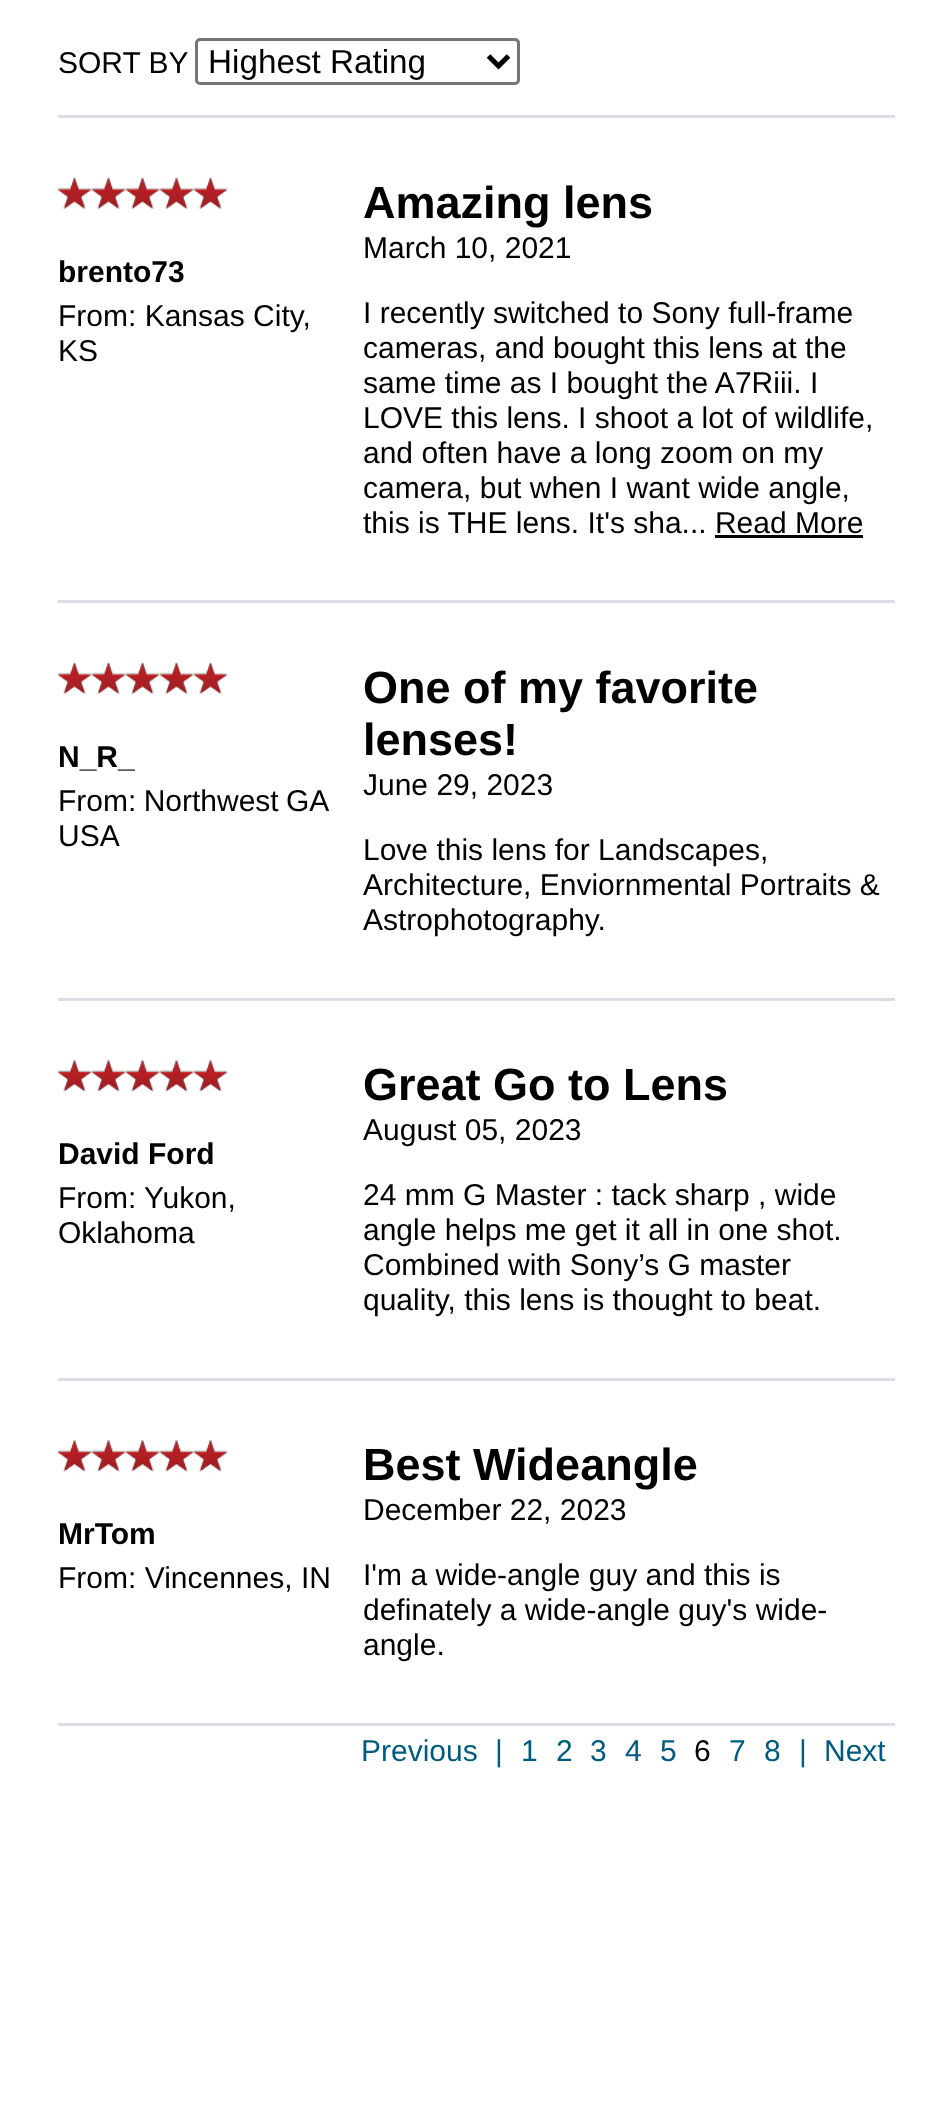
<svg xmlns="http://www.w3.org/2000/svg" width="951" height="2104">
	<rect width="100%" height="100%" fill="#FFFFFF" />
	<text x="58" y="73" font-family="Liberation Sans" font-size="30" fill="#000000">SORT BY</text>
	<rect x="196.5" y="39.5" width="322" height="44" rx="3.5" fill="none" stroke="#767676" stroke-width="3" />
	<path d="M488.5 56L498.5 66L508.5 56" fill="none" stroke="#000000" stroke-width="5" />
	<text x="208" y="73" font-family="Liberation Sans" font-size="33.25" fill="#000000">Highest Rating</text>
	<rect x="58" y="115" width="837" height="3" fill="#DADDE3" />
	<image x="57" y="177" width="171" height="33" href="assets/img1.png" />
	<text x="58" y="282" font-family="Liberation Sans" font-size="30" font-weight="700" fill="#000000">brento73</text>
	<g font-family="Liberation Sans" font-size="30" fill="#000000">
		<text x="58" y="326">From: Kansas City,</text>
		<text x="58" y="361">KS</text>
	</g>
	<text x="363" y="218" font-family="Liberation Sans" font-size="45" font-weight="700" fill="#000000">Amazing lens</text>
	<g font-family="Liberation Sans" font-size="30" fill="#000000">
		<text x="363" y="258">March 10, 2021</text>
		<text x="363" y="323">I recently switched to Sony full-frame</text>
		<text x="363" y="358">cameras, and bought this lens at the</text>
		<text x="363" y="393">same time as I bought the A7Riii. I</text>
		<text x="363" y="428">LOVE this lens. I shoot a lot of wildlife,</text>
		<text x="363" y="463">and often have a long zoom on my</text>
		<text x="363" y="498">camera, but when I want wide angle,</text>
		<text x="363" y="533">this is THE lens. It's sha... Read More</text>
	</g>
	<rect x="715" y="535" width="148" height="3" fill="#000000" />
	<rect x="58" y="600" width="837" height="3" fill="#DADDE3" />
	<image x="57" y="662" width="171" height="33" href="assets/img1.png" />
	<text x="58" y="767" font-family="Liberation Sans" font-size="30" font-weight="700" fill="#000000">N_R_</text>
	<g font-family="Liberation Sans" font-size="30" fill="#000000">
		<text x="58" y="811" word-spacing="-1">From: Northwest GA</text>
		<text x="58" y="846">USA</text>
	</g>
	<g font-family="Liberation Sans" font-size="45" font-weight="700" fill="#000000">
		<text x="363" y="703">One of my favorite</text>
		<text x="363" y="755">lenses!</text>
	</g>
	<g font-family="Liberation Sans" font-size="30" fill="#000000">
		<text x="363" y="795">June 29, 2023</text>
		<text x="363" y="860">Love this lens for Landscapes,</text>
		<text x="363" y="895">Architecture, Enviornmental Portraits &amp;</text>
		<text x="363" y="930">Astrophotography.</text>
	</g>
	<rect x="58" y="998" width="837" height="3" fill="#DADDE3" />
	<image x="57" y="1060" width="171" height="33" href="assets/img2.png" />
	<text x="58" y="1164" font-family="Liberation Sans" font-size="30" font-weight="700" fill="#000000">David Ford</text>
	<g font-family="Liberation Sans" font-size="30" fill="#000000">
		<text x="58" y="1208">From: Yukon,</text>
		<text x="58" y="1243">Oklahoma</text>
	</g>
	<text x="363" y="1100" font-family="Liberation Sans" font-size="45" font-weight="700" fill="#000000">Great Go to Lens</text>
	<g font-family="Liberation Sans" font-size="30" fill="#000000">
		<text x="363" y="1140">August 05, 2023</text>
		<text x="363" y="1205">24 mm G Master : tack sharp , wide</text>
		<text x="363" y="1240">angle helps me get it all in one shot.</text>
		<text x="363" y="1275">Combined with Sony’s G master</text>
		<text x="363" y="1310">quality, this lens is thought to beat.</text>
	</g>
	<rect x="58" y="1378" width="837" height="3" fill="#DADDE3" />
	<image x="57" y="1440" width="171" height="33" href="assets/img2.png" />
	<text x="58" y="1544" font-family="Liberation Sans" font-size="30" font-weight="700" fill="#000000">MrTom</text>
	<text x="58" y="1588" font-family="Liberation Sans" font-size="30" fill="#000000">From: Vincennes, IN</text>
	<text x="363" y="1480" font-family="Liberation Sans" font-size="45" font-weight="700" fill="#000000">Best Wideangle</text>
	<g font-family="Liberation Sans" font-size="30" fill="#000000">
		<text x="363" y="1520">December 22, 2023</text>
		<text x="363" y="1585">I'm a wide-angle guy and this is</text>
		<text x="363" y="1620">definately a wide-angle guy's wide-</text>
		<text x="363" y="1655">angle.</text>
	</g>
	<rect x="58" y="1723" width="837" height="3" fill="#DADDE3" />
	<g font-family="Liberation Sans" font-size="30" fill="#005B7F">
		<text x="361" y="1761">Previous</text>
		<text x="495" y="1761">|</text>
		<text x="521" y="1761">1</text>
		<text x="556" y="1761">2</text>
		<text x="590" y="1761">3</text>
		<text x="625" y="1761">4</text>
		<text x="660" y="1761">5</text>
	</g>
	<text x="694" y="1761" font-family="Liberation Sans" font-size="30" fill="#000000">6</text>
	<g font-family="Liberation Sans" font-size="30" fill="#005B7F">
		<text x="729" y="1761">7</text>
		<text x="764" y="1761">8</text>
		<text x="799" y="1761">|</text>
		<text x="824" y="1761">Next</text>
	</g>
</svg>
